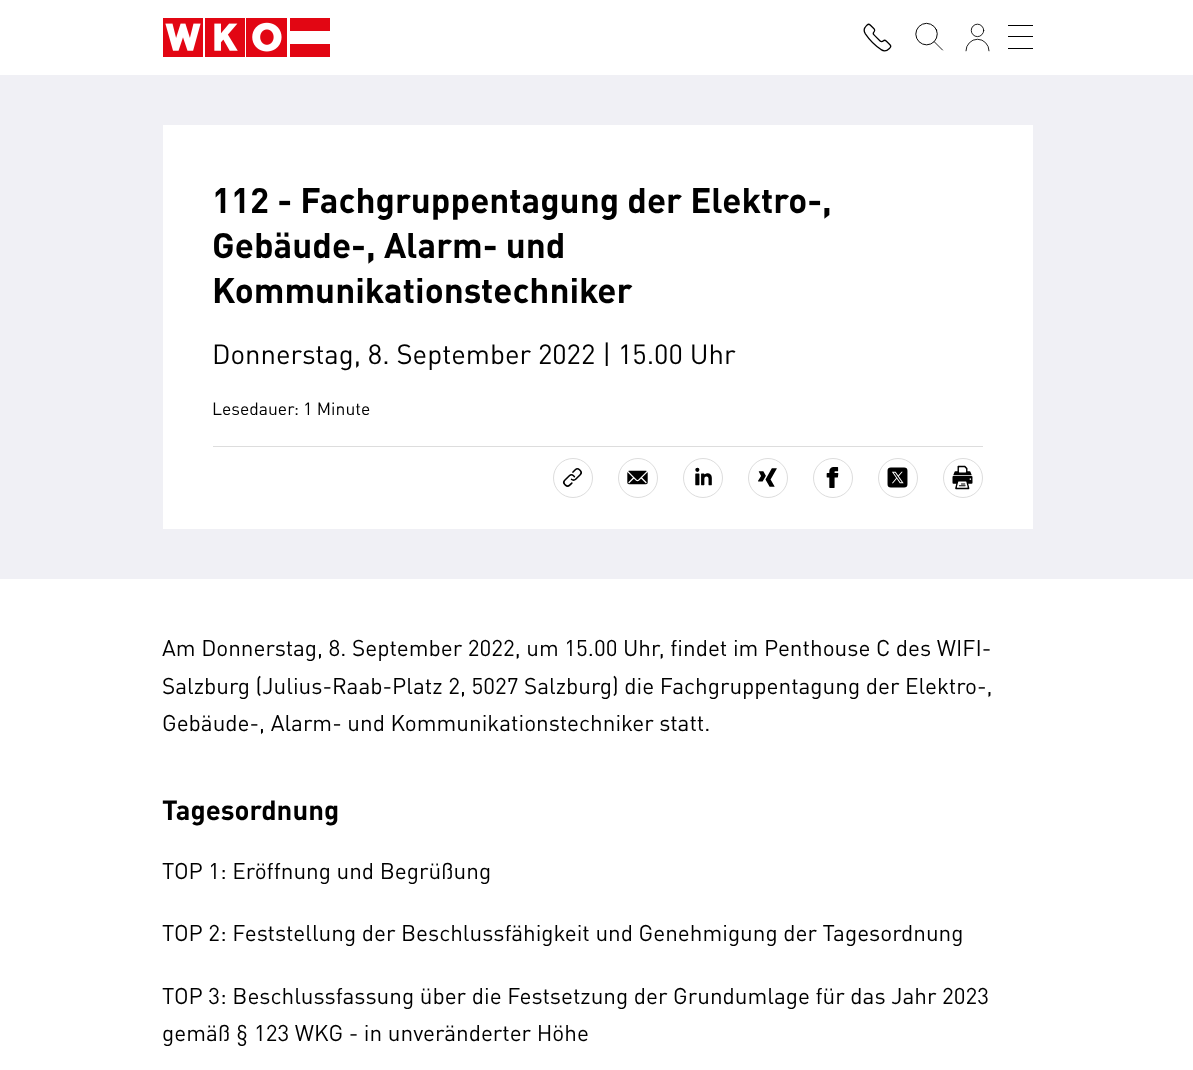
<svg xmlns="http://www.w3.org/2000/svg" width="1193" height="1070">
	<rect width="100%" height="100%" fill="#FFFFFF" />
	<image x="163" y="18" width="167" height="39" href="assets/img1.png" />
	<image x="863" y="23" width="29" height="29" href="assets/img2.png" />
	<image x="915" y="22" width="29" height="29" href="assets/img3.png" />
	<image x="965" y="23" width="25" height="29" href="assets/img4.png" />
	<rect x="1008" y="25" width="25" height="1" fill="#000000" />
	<rect x="1008" y="36" width="25" height="1" fill="#000000" />
	<rect x="1008" y="48" width="25" height="1" fill="#000000" />
	<rect x="0" y="75" width="1193" height="504" fill="#F0F0F5" />
	<rect x="163" y="125" width="870" height="404" fill="#FFFFFF" />
	<g font-family="DIN" font-size="35" font-weight="700" fill="#000000">
		<text x="212" y="213">112 - Fachgruppentagung der Elektro-,</text>
		<text x="212" y="258">Gebäude-, Alarm- und</text>
		<text x="212" y="303">Kommunikationstechniker</text>
	</g>
	<text x="212" y="364" font-family="DIN" font-size="27.5" fill="#000000">Donnerstag, 8. September 2022 | 15.00 Uhr</text>
	<text x="212" y="415" font-family="DIN" font-size="17.5" fill="#000000">Lesedauer: 1 Minute</text>
	<rect x="213" y="446" width="770" height="1" fill="#DDDDDD" />
	<circle cx="573" cy="478" r="19.5" fill="none" stroke="#DDDDDD" />
	<image x="562" y="468" width="20" height="19" href="assets/img5.png" />
	<circle cx="638" cy="478" r="19.5" fill="none" stroke="#DDDDDD" />
	<image x="627" y="470" width="21" height="15" href="assets/img6.png" />
	<circle cx="703" cy="478" r="19.5" fill="none" stroke="#DDDDDD" />
	<image x="695" y="467" width="17" height="19" href="assets/img7.png" />
	<circle cx="768" cy="478" r="19.5" fill="none" stroke="#DDDDDD" />
	<image x="758" y="468" width="19" height="19" href="assets/img8.png" />
	<circle cx="833" cy="478" r="19.5" fill="none" stroke="#DDDDDD" />
	<image x="826" y="467" width="13" height="21" href="assets/img9.png" />
	<circle cx="898" cy="478" r="19.5" fill="none" stroke="#DDDDDD" />
	<image x="887" y="467" width="21" height="21" href="assets/img10.png" />
	<circle cx="963" cy="478" r="19.5" fill="none" stroke="#DDDDDD" />
	<image x="952" y="465" width="21" height="25" href="assets/img11.png" />
	<g font-family="DIN" font-size="22.5" fill="#000000">
		<text x="162" y="656">Am Donnerstag, 8. September 2022, um 15.00 Uhr, findet im Penthouse C des WIFI-</text>
		<text x="162" y="694">Salzburg (Julius-Raab-Platz 2, 5027 Salzburg) die Fachgruppentagung der Elektro-,</text>
		<text x="162" y="731">Gebäude-, Alarm- und Kommunikationstechniker statt.</text>
	</g>
	<text x="162" y="820" font-family="DIN" font-size="27.5" font-weight="700" fill="#000000">Tagesordnung</text>
	<g font-family="DIN" font-size="22.5" fill="#000000">
		<text x="162" y="879">TOP 1: Eröffnung und Begrüßung</text>
		<text x="162" y="941">TOP 2: Feststellung der Beschlussfähigkeit und Genehmigung der Tagesordnung</text>
		<text x="162" y="1004">TOP 3: Beschlussfassung über die Festsetzung der Grundumlage für das Jahr 2023</text>
		<text x="162" y="1041">gemäß § 123 WKG - in unveränderter Höhe</text>
	</g>
</svg>
